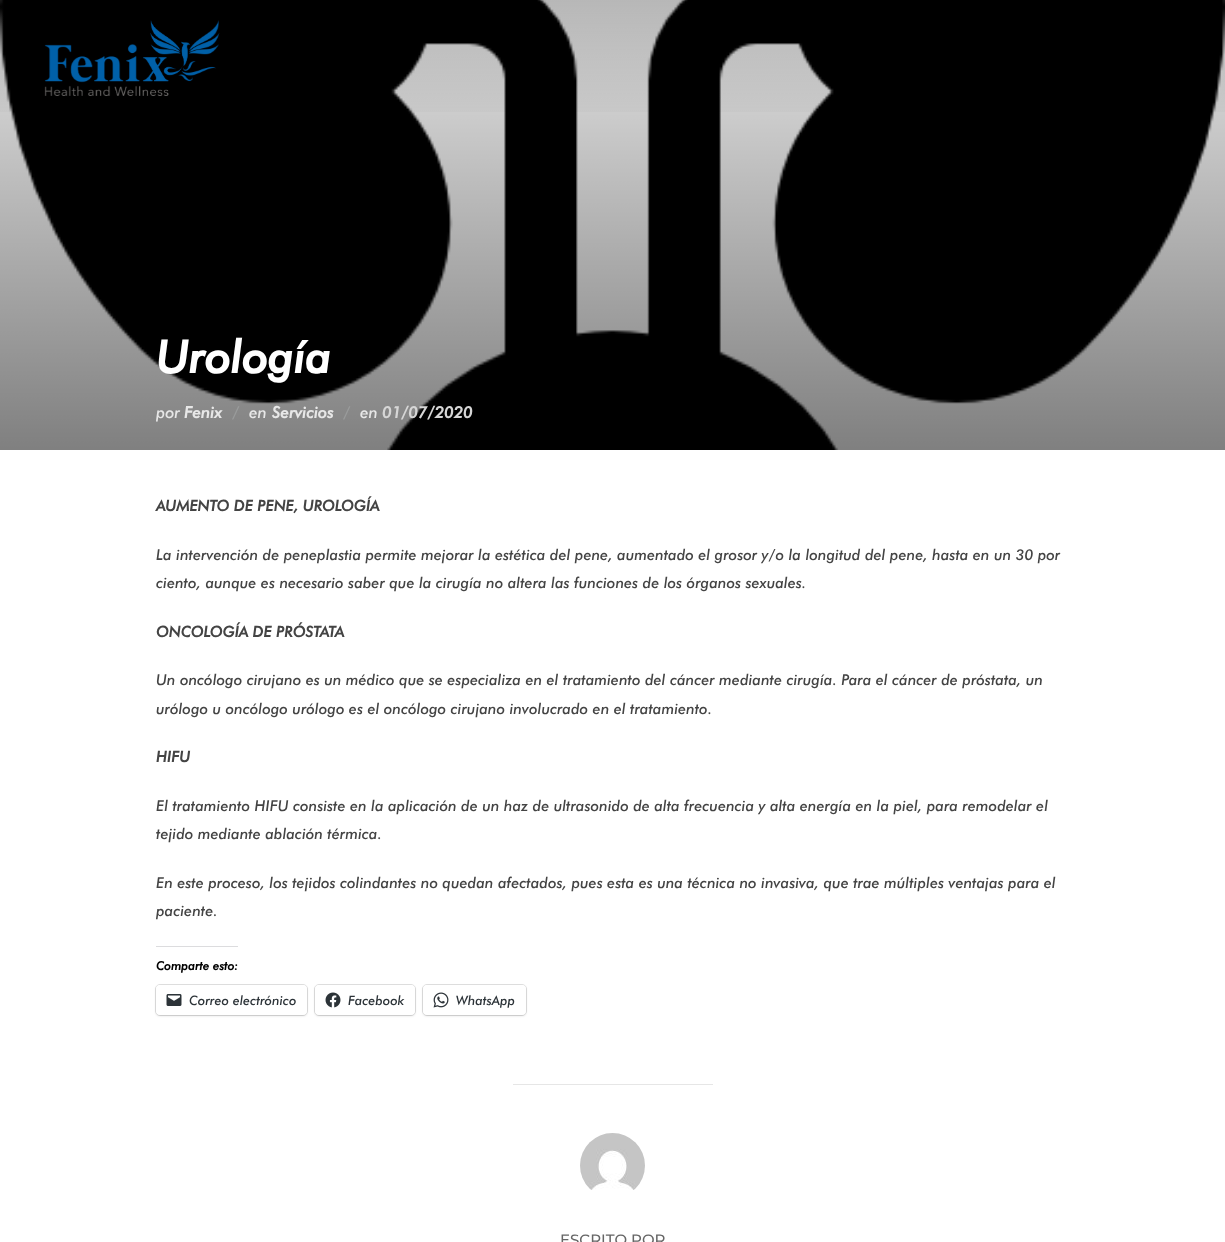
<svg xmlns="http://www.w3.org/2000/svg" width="1225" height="1242">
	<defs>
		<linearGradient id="g1" gradientUnits="userSpaceOnUse" x1="613" y1="0" x2="613" y2="450"><stop offset="0" stop-color="#000000" stop-opacity="0.1" /><stop offset="1" stop-color="#000000" stop-opacity="0.5" /></linearGradient>
		<linearGradient id="g2" gradientUnits="userSpaceOnUse" x1="613" y1="0" x2="613" y2="125"><stop offset="0.01" stop-color="#000000" stop-opacity="0.2" /><stop offset="1" stop-color="#000000" stop-opacity="0" /></linearGradient>
	</defs>
	<rect width="100%" height="100%" fill="#FFFFFF" />
	<image x="0" y="0" width="1225" height="450" href="assets/img2.png" />
	<rect x="0" y="0" width="1225" height="450" fill="url(#g1)" />
	<rect x="0" y="0" width="1225" height="112" fill="url(#g2)" />
	<image x="44" y="20" width="176" height="76" href="assets/img1.png" />
	<text x="156" y="373" font-family="Futura" font-size="45" font-weight="700" font-style="italic" fill="#FFFFFF">Urología</text>
	<text x="156" y="418" font-family="Futura" font-size="16" font-weight="500" font-style="italic" fill="#E7E7E7">por</text>
	<text x="184" y="418" font-family="Futura" font-size="16" font-weight="700" font-style="italic" fill="#E7E7E7">Fenix</text>
	<text x="232" y="418" font-family="Futura" font-size="16" font-weight="500" font-style="italic" fill="#9A9C9C">/</text>
	<text x="249" y="418" font-family="Futura" font-size="16" font-weight="500" font-style="italic" fill="#E7E7E7">en</text>
	<text x="272" y="418" font-family="Futura" font-size="16" font-weight="700" font-style="italic" fill="#E7E7E7">Servicios</text>
	<text x="343" y="418" font-family="Futura" font-size="16" font-weight="500" font-style="italic" fill="#9A9C9C">/</text>
	<text x="360" y="418" font-family="Futura" font-size="16" font-weight="500" font-style="italic" fill="#E7E7E7">en</text>
	<text x="382" y="418" font-family="Futura" font-size="16" font-weight="700" font-style="italic" fill="#D6D6D6">01/07/2020</text>
	<text x="156" y="511" font-family="Futura" font-size="15" font-weight="700" font-style="italic" fill="#444444">AUMENTO DE PENE, UROLOGÍA</text>
	<g font-family="Futura" font-size="15" font-weight="500" font-style="italic" fill="#444444">
		<text x="156" y="560">La intervención de peneplastia permite mejorar la estética del pene, aumentado el grosor y/o la longitud del pene, hasta en un 30 por</text>
		<text x="156" y="588">ciento, aunque es necesario saber que la cirugía no altera las funciones de los órganos sexuales.</text>
	</g>
	<text x="156" y="637" font-family="Futura" font-size="15" font-weight="700" font-style="italic" fill="#444444">ONCOLOGÍA DE PRÓSTATA</text>
	<g font-family="Futura" font-size="15" font-weight="500" font-style="italic" fill="#444444">
		<text x="156" y="685">Un oncólogo cirujano es un médico que se especializa en el tratamiento del cáncer mediante cirugía. Para el cáncer de próstata, un</text>
		<text x="156" y="714">urólogo u oncólogo urólogo es el oncólogo cirujano involucrado en el tratamiento.</text>
	</g>
	<text x="156" y="762" font-family="Futura" font-size="15" font-weight="700" font-style="italic" fill="#444444">HIFU</text>
	<g font-family="Futura" font-size="15" font-weight="500" font-style="italic" fill="#444444">
		<text x="156" y="811">El tratamiento HIFU consiste en la aplicación de un haz de ultrasonido de alta frecuencia y alta energía en la piel, para remodelar el</text>
		<text x="156" y="839">tejido mediante ablación térmica.</text>
		<text x="156" y="888">En este proceso, los tejidos colindantes no quedan afectados, pues esta es una técnica no invasiva, que trae múltiples ventajas para el</text>
		<text x="156" y="916">paciente.</text>
	</g>
	<rect x="156" y="946" width="82" height="1" fill="#DCDCDE" />
	<text x="156" y="970" font-family="Futura" font-size="12" font-weight="700" font-style="italic" fill="#000000">Comparte esto:</text>
	<rect x="155.5" y="984.5" width="152" height="31" rx="4.5" fill="none" stroke="#E0E0E0" />
	<rect x="156" y="986" width="151" height="30" rx="4" fill="#000000" fill-opacity="0.12" filter="blur(1px)" />
	<rect x="156" y="985" width="151" height="30" rx="4" fill="#FFFFFF" />
	<image x="166" y="994" width="16" height="12" href="assets/img3.png" />
	<text x="189" y="1005" font-family="Futura" font-size="13" font-weight="500" font-style="italic" fill="#2C3338">Correo electrónico</text>
	<rect x="314.5" y="984.5" width="101" height="31" rx="4.5" fill="none" stroke="#E0E0E0" />
	<rect x="315" y="986" width="100" height="30" rx="4" fill="#000000" fill-opacity="0.12" filter="blur(1px)" />
	<rect x="315" y="985" width="100" height="30" rx="4" fill="#FFFFFF" />
	<image x="325" y="992" width="16" height="16" href="assets/img4.png" />
	<text x="348" y="1005" font-family="Futura" font-size="13" font-weight="500" font-style="italic" fill="#2C3338">Facebook</text>
	<rect x="422.5" y="984.5" width="104" height="31" rx="4.5" fill="none" stroke="#E0E0E0" />
	<rect x="423" y="986" width="103" height="30" rx="4" fill="#000000" fill-opacity="0.12" filter="blur(1px)" />
	<rect x="423" y="985" width="103" height="30" rx="4" fill="#FFFFFF" />
	<image x="433" y="992" width="16" height="16" href="assets/img5.png" />
	<text x="456" y="1005" font-family="Futura" font-size="13" font-weight="500" font-style="italic" fill="#2C3338">WhatsApp</text>
	<rect x="513" y="1084" width="200" height="1" fill="#E6E6E6" />
	<image x="580" y="1133" width="65" height="57" href="assets/img6.png" />
	<text x="560" y="1245" font-family="Montserrat" font-size="15" font-weight="500" fill="#666666">ESCRITO POR</text>
</svg>
